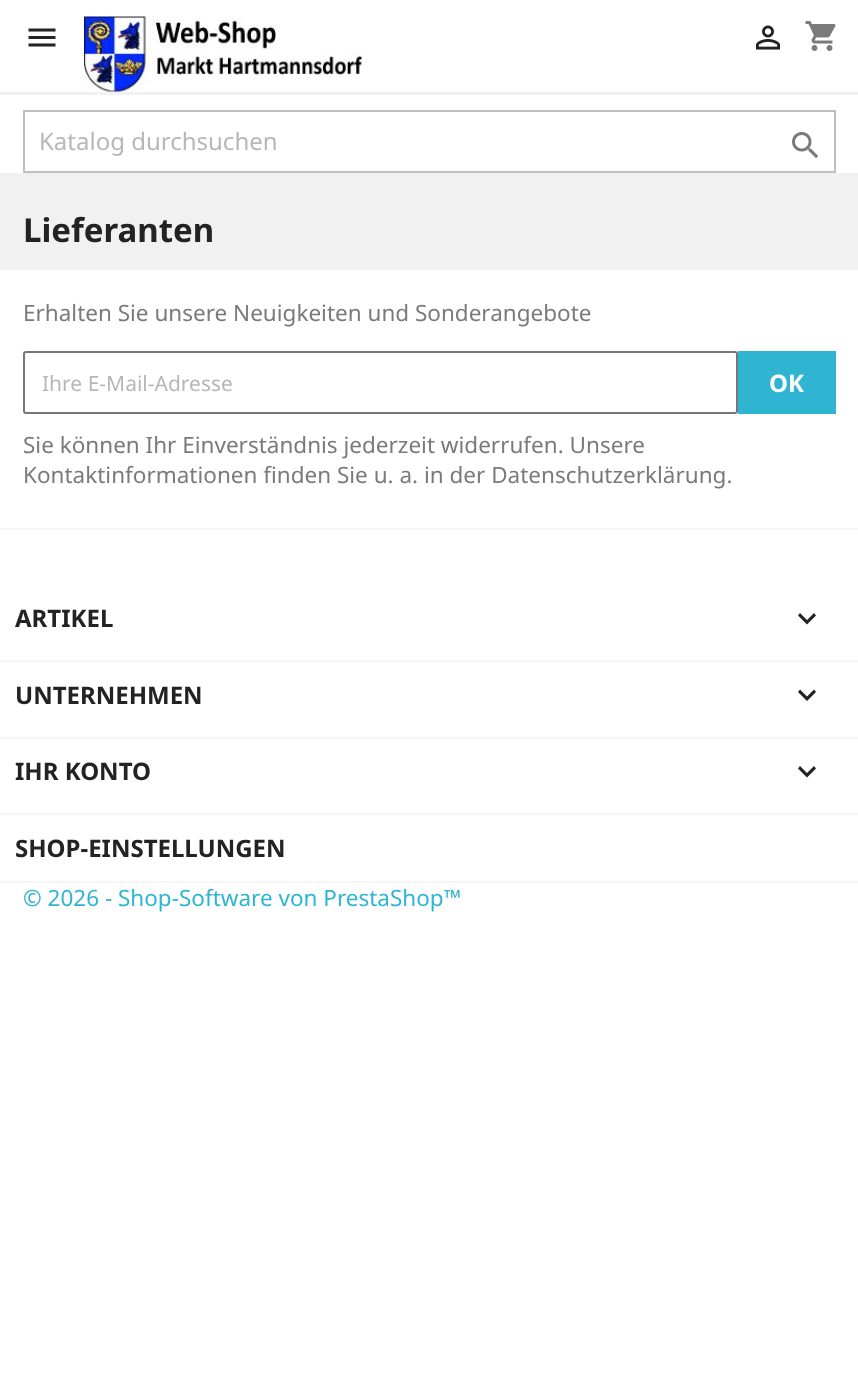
<svg xmlns="http://www.w3.org/2000/svg" width="858" height="1373">
	<rect width="100%" height="100%" fill="#FFFFFF" />
	<rect x="0" y="92" width="858" height="3" fill="#F1F1F1" />
	<image x="28" y="28" width="28" height="19" href="assets/img1.png" />
	<image x="84" y="16" width="278" height="76" href="assets/img2.png" />
	<image x="755" y="25" width="26" height="25" href="assets/img3.png" />
	<image x="805" y="21" width="31" height="30" href="assets/img4.png" />
	<rect x="24" y="111" width="811" height="61" fill="none" stroke="#BFBFBF" stroke-width="2" />
	<text x="39" y="150" font-family="Noto Sans" font-size="24" fill="#B7B7B7">Katalog durchsuchen</text>
	<image x="792" y="132" width="27" height="27" href="assets/img5.png" />
	<rect x="0" y="173" width="858" height="97" fill="#F1F1F1" />
	<text x="23" y="242" font-family="Noto Sans" font-size="33" font-weight="700" fill="#232323">Lieferanten</text>
	<rect x="0" y="528" width="858" height="2" fill="#F6F6F6" />
	<text x="23" y="321" font-family="Noto Sans" font-size="22.5" fill="#7A7A7A">Erhalten Sie unsere Neuigkeiten und Sonderangebote</text>
	<rect x="24" y="352" width="713" height="61" rx="2" fill="none" stroke="#767676" stroke-width="2" />
	<text x="42" y="391" font-family="Noto Sans" font-size="21" fill="#B7B7B7">Ihre E-Mail-Adresse</text>
	<rect x="738" y="351" width="98" height="63" fill="#2FB5D2" />
	<text x="769" y="392" font-family="Noto Sans" font-size="24" font-weight="700" fill="#FFFFFF">OK</text>
	<g font-family="Noto Sans" font-size="22.5" fill="#7A7A7A">
		<text x="23" y="453">Sie können Ihr Einverständnis jederzeit widerrufen. Unsere</text>
		<text x="23" y="483">Kontaktinformationen finden Sie u. a. in der Datenschutzerklärung.</text>
	</g>
	<rect x="0" y="660" width="858" height="2" fill="#F6F6F6" />
	<text x="15" y="627" font-family="Noto Sans" font-size="24" font-weight="700" fill="#232323">ARTIKEL</text>
	<path d="M800 613L807 620L814 613L816 615.5L807 624.5L798 615.5Z" fill="#232323" />
	<rect x="0" y="737" width="858" height="2" fill="#F6F6F6" />
	<text x="15" y="704" font-family="Noto Sans" font-size="24" font-weight="700" fill="#232323">UNTERNEHMEN</text>
	<path d="M800 689.5L807 696.5L814 689.5L816 692L807 701L798 692Z" fill="#232323" />
	<rect x="0" y="813" width="858" height="2" fill="#F6F6F6" />
	<text x="15" y="780" font-family="Noto Sans" font-size="24" font-weight="700" fill="#232323">IHR KONTO</text>
	<path d="M800 766L807 773L814 766L816 768.5L807 777.5L798 768.5Z" fill="#232323" />
	<rect x="0" y="881" width="858" height="2" fill="#F6F6F6" />
	<text x="15" y="857" font-family="Noto Sans" font-size="24" font-weight="700" fill="#232323">SHOP-EINSTELLUNGEN</text>
	<text x="23" y="906" font-family="Noto Sans" font-size="22.5" fill="#2FB5D2">© 2026 - Shop-Software von PrestaShop™</text>
</svg>
